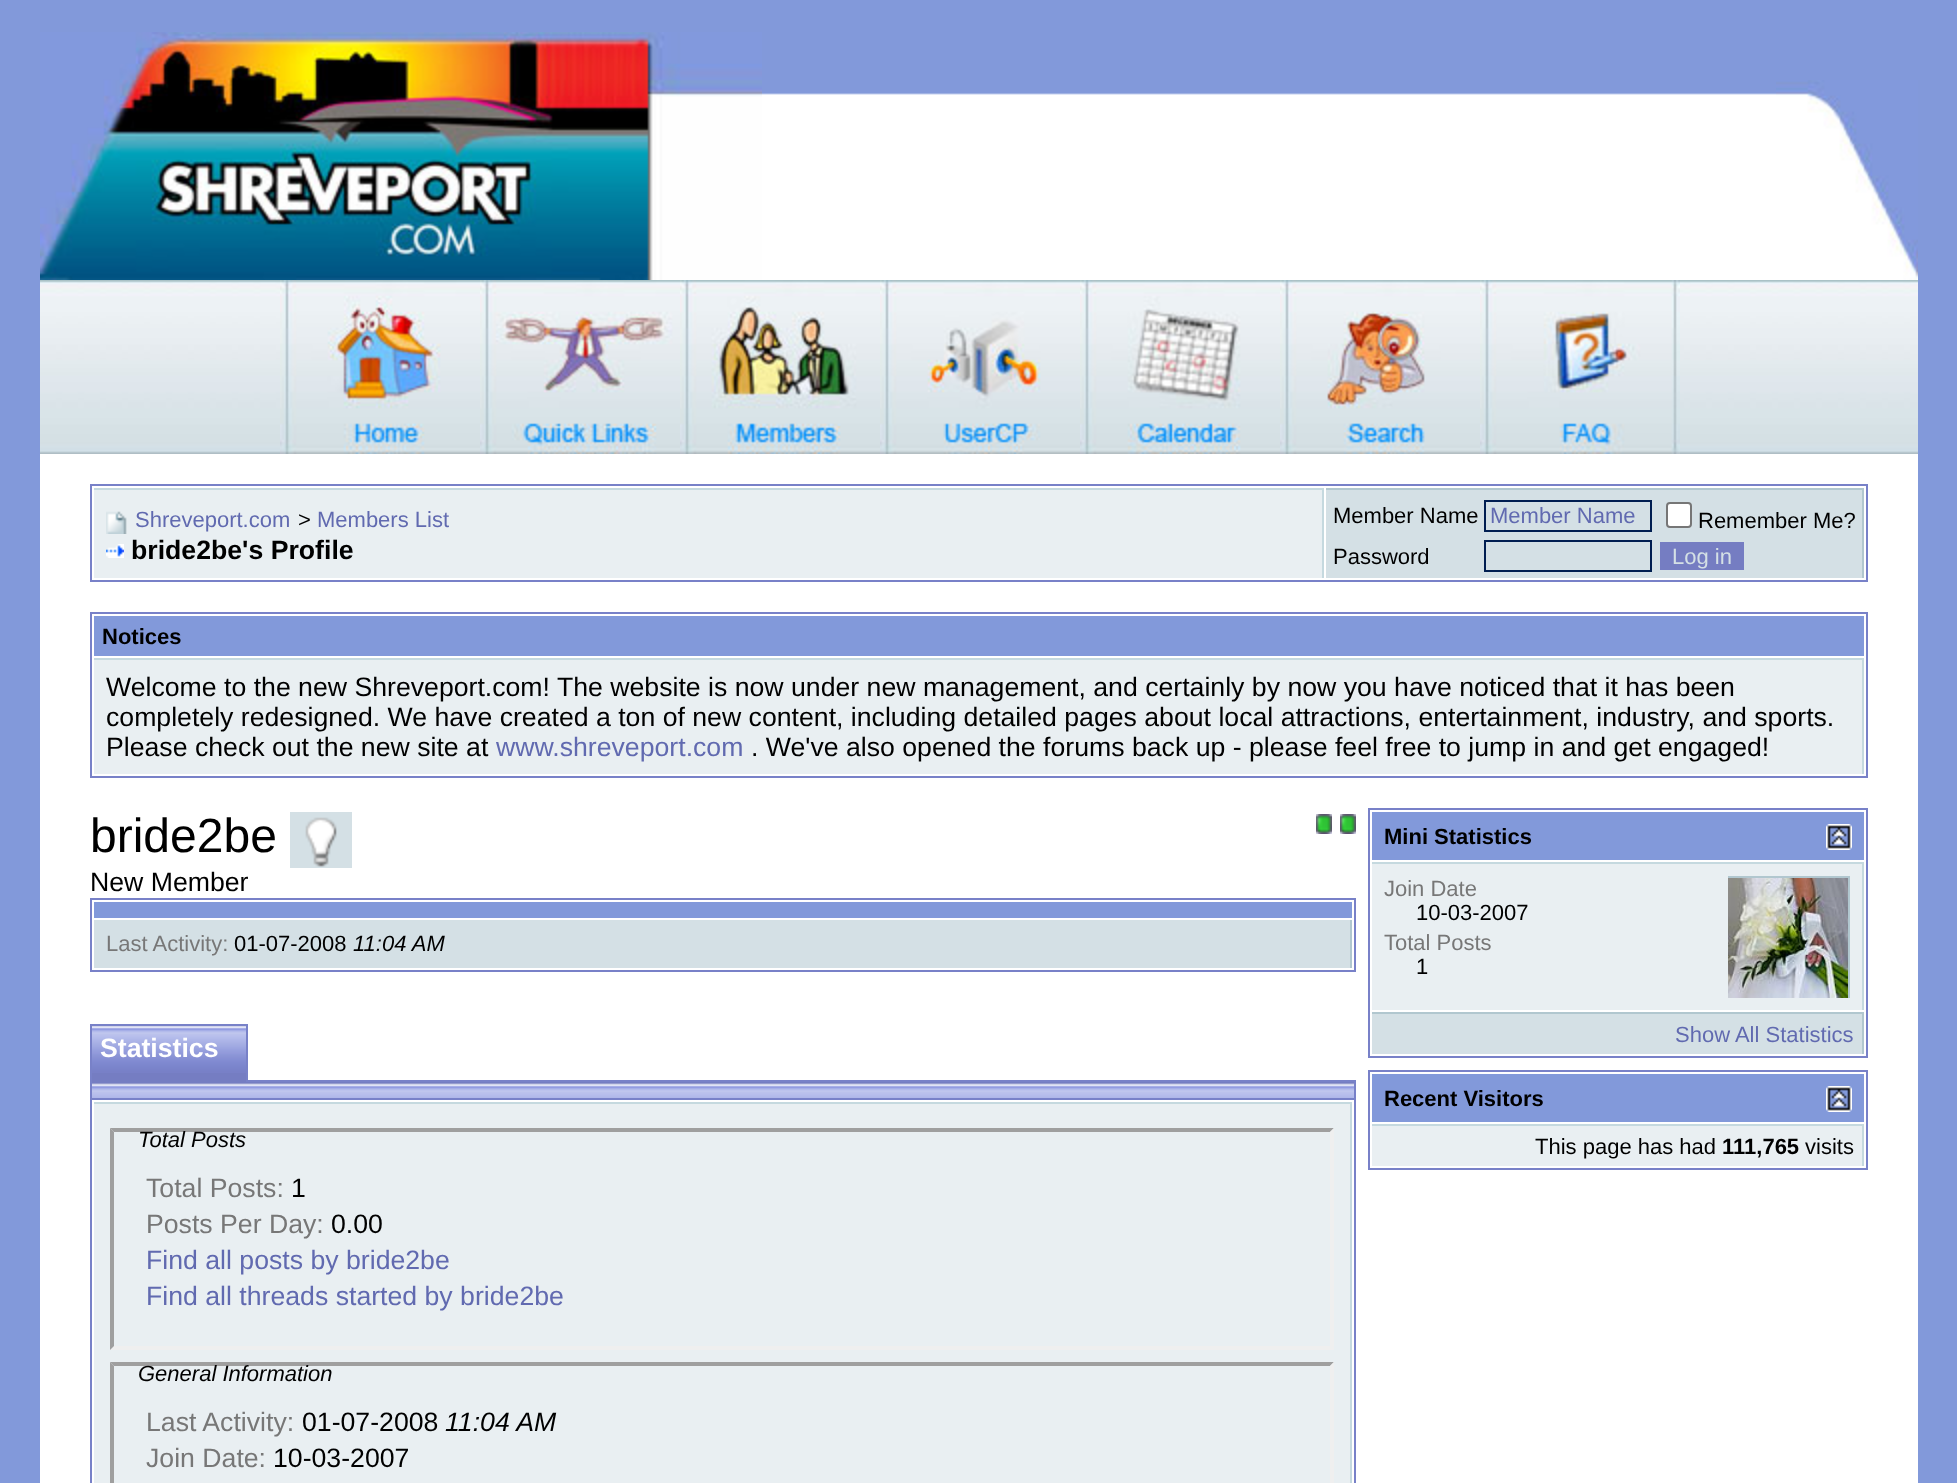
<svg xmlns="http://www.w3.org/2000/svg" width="1957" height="1483">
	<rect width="100%" height="100%" fill="#8299DA" />
	<image x="762" y="93" width="1014" height="187" href="assets/img1.png" />
	<image x="40" y="32" width="722" height="248" href="assets/img2.png" />
	<image x="1776" y="80" width="142" height="200" href="assets/img3.png" />
	<image x="40" y="280" width="1878" height="174" href="assets/img4.png" />
	<image x="280" y="280" width="200" height="174" href="assets/img5.png" />
	<image x="480" y="280" width="200" height="174" href="assets/img6.png" />
	<image x="680" y="280" width="200" height="174" href="assets/img7.png" />
	<image x="880" y="280" width="200" height="174" href="assets/img8.png" />
	<image x="1080" y="280" width="200" height="174" href="assets/img9.png" />
	<image x="1280" y="280" width="200" height="174" href="assets/img10.png" />
	<image x="1480" y="280" width="200" height="174" href="assets/img11.png" />
	<rect x="40" y="454" width="1878" height="1029" fill="#FFFFFF" />
	<rect x="91" y="485" width="1776" height="96" fill="none" stroke="#7881C8" stroke-width="2" />
	<rect x="94" y="490" width="1228" height="88" fill="#E9EFF2" />
	<rect x="94" y="488" width="1230" height="2" fill="#C5D9DF" />
	<rect x="1322" y="488" width="2" height="90" fill="#C5D9DF" />
	<image x="106" y="511" width="21" height="23" href="assets/img12.png" />
	<text x="135" y="527" font-family="Liberation Sans" font-size="22" fill="#616AB0">Shreveport.com</text>
	<text x="298" y="527" font-family="Liberation Sans" font-size="22" fill="#000000">&gt;</text>
	<text x="317" y="527" font-family="Liberation Sans" font-size="22" fill="#616AB0">Members List</text>
	<image x="106" y="544" width="18" height="14" href="assets/img13.png" />
	<text x="131" y="559" font-family="Liberation Sans" font-size="26.67" font-weight="700" fill="#000000">bride2be's Profile</text>
	<rect x="1326" y="490" width="536" height="88" fill="#D4E0E5" />
	<rect x="1326" y="488" width="538" height="2" fill="#B1C7CF" />
	<rect x="1862" y="488" width="2" height="90" fill="#B1C7CF" />
	<text x="1333" y="523" font-family="Liberation Sans" font-size="22" fill="#000000">Member Name</text>
	<rect x="1485" y="501" width="166" height="30" fill="none" stroke="#001E51" stroke-width="2" />
	<text x="1490" y="523" font-family="Liberation Sans" font-size="22" fill="#616AB0">Member Name</text>
	<rect x="1667" y="503" width="24" height="24" rx="3" fill="#FFFFFF" stroke="#767676" stroke-width="2" />
	<g font-family="Liberation Sans" font-size="22" fill="#000000">
		<text x="1698" y="528">Remember Me?</text>
		<text x="1333" y="564">Password</text>
	</g>
	<rect x="1485" y="541" width="166" height="30" fill="none" stroke="#001E51" stroke-width="2" />
	<rect x="1660" y="542" width="84" height="28" fill="#757DC2" />
	<text x="1672" y="564" font-family="Liberation Sans" font-size="22" fill="#D4E0E5">Log in</text>
	<rect x="91" y="613" width="1776" height="164" fill="none" stroke="#7881C8" stroke-width="2" />
	<rect x="94" y="616" width="1770" height="40" fill="#8299DA" />
	<text x="102" y="644" font-family="Liberation Sans" font-size="22" font-weight="700" fill="#000000">Notices</text>
	<rect x="94" y="660" width="1768" height="114" fill="#E9EFF2" />
	<rect x="94" y="658" width="1770" height="2" fill="#C5D9DF" />
	<rect x="1862" y="658" width="2" height="116" fill="#C5D9DF" />
	<g font-family="Liberation Sans" font-size="26.67" fill="#000000">
		<text x="106" y="696">Welcome to the new Shreveport.com! The website is now under new management, and certainly by now you have noticed that it has been</text>
		<text x="106" y="726">completely redesigned. We have created a ton of new content, including detailed pages about local attractions, entertainment, industry, and sports.</text>
		<text x="106" y="756">Please check out the new site at</text>
	</g>
	<text x="496" y="756" font-family="Liberation Sans" font-size="26.67" fill="#616AB0">www.shreveport.com</text>
	<text x="751" y="756" font-family="Liberation Sans" font-size="26.67" fill="#000000">. We've also opened the forums back up - please feel free to jump in and get engaged!</text>
	<text x="90" y="852" font-family="Liberation Sans" font-size="48" fill="#000000">bride2be</text>
	<image x="290" y="812" width="62" height="56" href="assets/img14.png" />
	<image x="1316" y="814" width="16" height="20" href="assets/img15.png" />
	<image x="1340" y="814" width="16" height="20" href="assets/img15.png" />
	<text x="90" y="891" font-family="Liberation Sans" font-size="26.67" fill="#000000">New Member</text>
	<rect x="91" y="899" width="1264" height="72" fill="none" stroke="#7881C8" stroke-width="2" />
	<rect x="94" y="902" width="1258" height="16" fill="#8299DA" />
	<rect x="94" y="920" width="1256" height="48" fill="#D4E0E5" />
	<rect x="1350" y="920" width="2" height="48" fill="#B1C7CF" />
	<text x="106" y="951" font-family="Liberation Sans" font-size="22" fill="#777777">Last Activity:</text>
	<text x="234" y="951" font-family="Liberation Sans" font-size="22" fill="#000000">01-07-2008</text>
	<text x="353" y="951" font-family="Liberation Sans" font-size="22" font-style="italic" fill="#000000">11:04 AM</text>
	<rect x="92" y="1073" width="154" height="9" fill="#757DC2" />
	<image x="92" y="1026" width="154" height="47" href="assets/img16.png" />
	<rect x="90" y="1024" width="158" height="2" fill="#7881C8" />
	<rect x="246" y="1024" width="2" height="58" fill="#7881C8" />
	<rect x="90" y="1080" width="2" height="18" fill="#7881C8" />
	<rect x="90" y="1024" width="2" height="58" fill="#7881C8" />
	<text x="100" y="1057" font-family="Liberation Sans" font-size="26.67" font-weight="700" fill="#FFFFFF">Statistics</text>
	<rect x="92" y="1082" width="1262" height="1" fill="#757DC2" />
	<image x="92" y="1083" width="1262" height="15" href="assets/img17.png" />
	<rect x="248" y="1080" width="1108" height="2" fill="#7881C8" />
	<rect x="1354" y="1080" width="2" height="18" fill="#7881C8" />
	<rect x="91" y="1099" width="1264" height="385" fill="none" stroke="#7881C8" stroke-width="2" />
	<rect x="94" y="1104" width="1256" height="379" fill="#E9EFF2" />
	<rect x="94" y="1102" width="1258" height="2" fill="#C5D9DF" />
	<rect x="1350" y="1102" width="2" height="381" fill="#C5D9DF" />
	<path d="M110 1128H1334L1330 1132H114Z" fill="#9F9F9F" />
	<path d="M1334 1128V1350L1330 1346V1132Z" fill="#EFEFEF" />
	<path d="M1334 1350H110L114 1346H1330Z" fill="#EFEFEF" />
	<path d="M110 1350V1128L114 1132V1346Z" fill="#9F9F9F" />
	<text x="138" y="1147" font-family="Liberation Sans" font-size="22" font-style="italic" fill="#000000">Total Posts</text>
	<text x="146" y="1197" font-family="Liberation Sans" font-size="26.67" fill="#777777">Total Posts:</text>
	<text x="291" y="1197" font-family="Liberation Sans" font-size="26.67" fill="#000000">1</text>
	<text x="146" y="1233" font-family="Liberation Sans" font-size="26.67" fill="#777777">Posts Per Day:</text>
	<text x="331" y="1233" font-family="Liberation Sans" font-size="26.67" fill="#000000">0.00</text>
	<g font-family="Liberation Sans" font-size="26.67" fill="#616AB0">
		<text x="146" y="1269">Find all posts by bride2be</text>
		<text x="146" y="1305">Find all threads started by bride2be</text>
	</g>
	<path d="M110 1362H1334L1330 1366H114Z" fill="#9F9F9F" />
	<path d="M1334 1362V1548L1330 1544V1366Z" fill="#EFEFEF" />
	<path d="M110 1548V1362L114 1366V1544Z" fill="#9F9F9F" />
	<text x="138" y="1381" font-family="Liberation Sans" font-size="22" font-style="italic" fill="#000000">General Information</text>
	<text x="146" y="1431" font-family="Liberation Sans" font-size="26.67" fill="#777777">Last Activity:</text>
	<text x="302" y="1431" font-family="Liberation Sans" font-size="26.67" fill="#000000">01-07-2008</text>
	<text x="445" y="1431" font-family="Liberation Sans" font-size="26.67" font-style="italic" fill="#000000">11:04 AM</text>
	<text x="146" y="1467" font-family="Liberation Sans" font-size="26.67" fill="#777777">Join Date:</text>
	<text x="273" y="1467" font-family="Liberation Sans" font-size="26.67" fill="#000000">10-03-2007</text>
	<rect x="1369" y="809" width="498" height="248" fill="none" stroke="#7881C8" stroke-width="2" />
	<rect x="1372" y="812" width="492" height="48" fill="#8299DA" />
	<text x="1384" y="844" font-family="Liberation Sans" font-size="22" font-weight="700" fill="#000000">Mini Statistics</text>
	<image x="1826" y="824" width="26" height="26" href="assets/img18.png" />
	<rect x="1372" y="864" width="490" height="146" fill="#E9EFF2" />
	<rect x="1372" y="862" width="492" height="2" fill="#C5D9DF" />
	<rect x="1862" y="862" width="2" height="148" fill="#C5D9DF" />
	<text x="1384" y="896" font-family="Liberation Sans" font-size="22" fill="#777777">Join Date</text>
	<text x="1416" y="920" font-family="Liberation Sans" font-size="22" fill="#000000">10-03-2007</text>
	<text x="1384" y="950" font-family="Liberation Sans" font-size="22" fill="#777777">Total Posts</text>
	<text x="1416" y="974" font-family="Liberation Sans" font-size="22" fill="#000000">1</text>
	<rect x="1728" y="876" width="122" height="2" fill="#B1C7CF" />
	<image x="1728" y="878" width="120" height="120" href="assets/img19.png" />
	<rect x="1848" y="876" width="2" height="122" fill="#B1C7CF" />
	<rect x="1372" y="1014" width="490" height="40" fill="#D4E0E5" />
	<rect x="1372" y="1012" width="492" height="2" fill="#B1C7CF" />
	<rect x="1862" y="1012" width="2" height="42" fill="#B1C7CF" />
	<text x="1675" y="1042" font-family="Liberation Sans" font-size="22" fill="#616AB0">Show All Statistics</text>
	<rect x="1369" y="1071" width="498" height="98" fill="none" stroke="#7881C8" stroke-width="2" />
	<rect x="1372" y="1074" width="492" height="48" fill="#8299DA" />
	<text x="1384" y="1106" font-family="Liberation Sans" font-size="22" font-weight="700" fill="#000000">Recent Visitors</text>
	<image x="1826" y="1086" width="26" height="26" href="assets/img18.png" />
	<rect x="1372" y="1126" width="490" height="40" fill="#E9EFF2" />
	<rect x="1372" y="1124" width="492" height="2" fill="#C5D9DF" />
	<rect x="1862" y="1124" width="2" height="42" fill="#C5D9DF" />
	<text x="1535" y="1154" font-family="Liberation Sans" font-size="22" fill="#000000">This page has had</text>
	<text x="1722" y="1154" font-family="Liberation Sans" font-size="22" font-weight="700" fill="#000000">111,765</text>
	<text x="1805" y="1154" font-family="Liberation Sans" font-size="22" fill="#000000">visits</text>
</svg>
